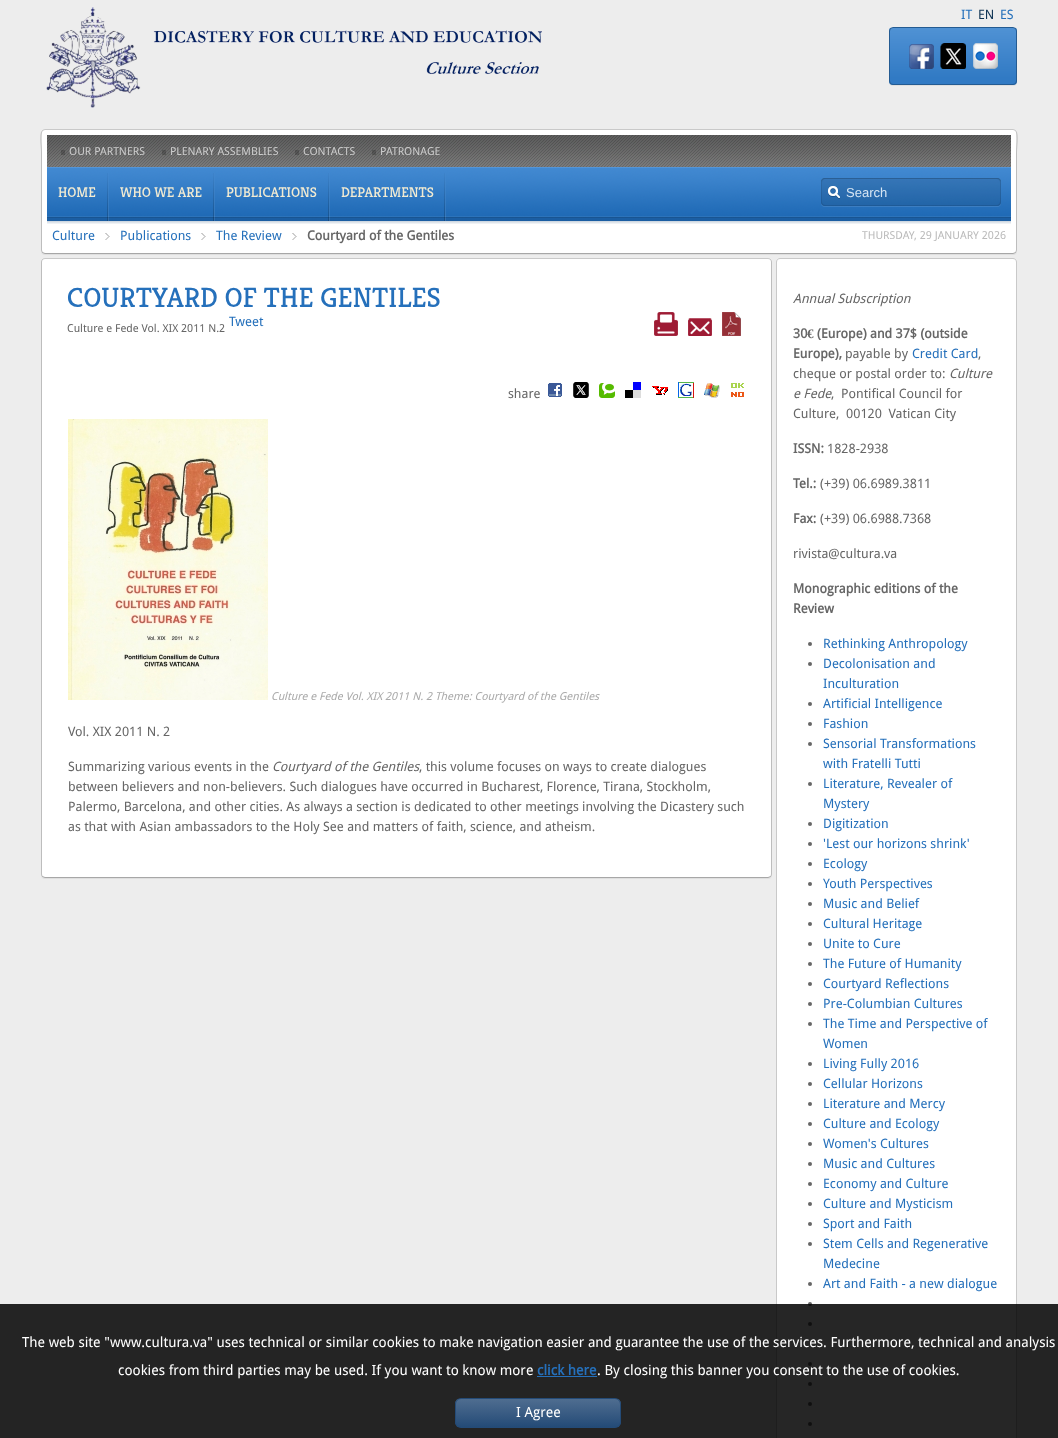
<svg xmlns="http://www.w3.org/2000/svg" width="1058" height="1438">
	<defs>
		<clipPath id="clip1"><rect x="455" y="1398" width="166" height="30" rx="6" /></clipPath>
		<linearGradient id="g1" gradientUnits="userSpaceOnUse" x1="538" y1="1399" x2="538" y2="1427"><stop offset="0" stop-color="#4F6D90" /><stop offset="1" stop-color="#244B77" /></linearGradient>
	</defs>
	<rect width="100%" height="100%" fill="#EDEDED" />
	<image x="46" y="7" width="496" height="101" href="assets/img1.png" />
	<text x="961" y="19" font-family="Droid Sans" font-size="13" fill="#2570BB">IT</text>
	<text x="978" y="19" font-family="Droid Sans" font-size="13" fill="#0C3152">EN</text>
	<text x="1000" y="19" font-family="Droid Sans" font-size="13" fill="#2570BB">ES</text>
	<rect x="889" y="28" width="128" height="58" rx="4" fill="#000000" fill-opacity="0.06" filter="blur(0.5px)" />
	<image x="889" y="28" width="128" height="57" href="assets/img2.png" />
	<rect x="889.5" y="27.5" width="127" height="57" rx="3.5" fill="none" stroke="#245B92" />
	<image x="909" y="44" width="25" height="25" href="assets/img3.png" />
	<image x="940" y="43" width="26" height="26" href="assets/img4.png" />
	<image x="973" y="43" width="25" height="26" href="assets/img5.png" />
	<rect x="41" y="130" width="976" height="125" rx="4" fill="#000000" fill-opacity="0.06" filter="blur(0.5px)" />
	<rect x="42" y="130" width="974" height="123" rx="3" fill="#FFFFFF" />
	<path d="M1015.5 252.5L1013 253.5H45L42.5 252.5" fill="none" stroke="#000000" stroke-opacity="0.25" />
	<path d="M42.5 252.5L41.5 250V152.5C41.5 145.5 38 129.5 45 129.5H1013C1020 129.5 1016.5 145.5 1016.5 152.5V250L1015.5 252.5" fill="none" stroke="#000000" stroke-opacity="0.15" />
	<image x="47" y="135" width="964" height="32" href="assets/img6.png" />
	<rect x="61" y="150" width="4" height="5" fill="#000000" fill-opacity="0.2" />
	<text x="69" y="155" font-family="Droid Sans" font-size="11" fill="#CCCCCC">OUR PARTNERS</text>
	<rect x="162" y="150" width="4" height="5" fill="#000000" fill-opacity="0.2" />
	<text x="170" y="155" font-family="Droid Sans" font-size="11" fill="#CCCCCC">PLENARY ASSEMBLIES</text>
	<rect x="295" y="150" width="4" height="5" fill="#000000" fill-opacity="0.2" />
	<text x="303" y="155" font-family="Droid Sans" font-size="11" fill="#CCCCCC">CONTACTS</text>
	<rect x="372" y="150" width="4" height="5" fill="#000000" fill-opacity="0.2" />
	<text x="380" y="155" font-family="Droid Sans" font-size="11" fill="#CCCCCC">PATRONAGE</text>
	<image x="47" y="167" width="964" height="57" href="assets/img7.png" />
	<image x="107" y="173" width="2" height="48" href="assets/img8.png" />
	<text x="58" y="197" font-family="Kreon" font-size="14" fill="#F2EBD2">HOME</text>
	<image x="213" y="173" width="2" height="48" href="assets/img9.png" />
	<text x="120" y="197" font-family="Kreon" font-size="14" fill="#F2EBD2">WHO WE ARE</text>
	<image x="328" y="173" width="2" height="48" href="assets/img10.png" />
	<text x="226" y="197" font-family="Kreon" font-size="14" fill="#F2EBD2">PUBLICATIONS</text>
	<image x="444" y="173" width="2" height="48" href="assets/img11.png" />
	<text x="341" y="197" font-family="Kreon" font-size="14" fill="#F2EBD2">DEPARTMENTS</text>
	<image x="821" y="178" width="180" height="29" href="assets/img12.png" />
	<text x="846" y="197" font-family="Liberation Sans" font-size="13" fill="#D6E5F3">Search</text>
	<image x="105" y="233" width="5" height="7" href="assets/img13.png" />
	<text x="52" y="240" font-family="Droid Sans" font-size="13" fill="#2570BB">Culture</text>
	<image x="201" y="233" width="5" height="7" href="assets/img13.png" />
	<text x="120" y="240" font-family="Droid Sans" font-size="13" fill="#2570BB">Publications</text>
	<image x="292" y="233" width="5" height="7" href="assets/img13.png" />
	<text x="216" y="240" font-family="Droid Sans" font-size="13" fill="#2570BB">The Review</text>
	<text x="307" y="240" font-family="Droid Sans" font-size="13" font-weight="700" fill="#666666">Courtyard of the Gentiles</text>
	<text x="862" y="239" font-family="Droid Sans" font-size="11" fill="#BBBBBB">THURSDAY, 29 JANUARY 2026</text>
	<rect x="41" y="259" width="731" height="620" rx="4" fill="#000000" fill-opacity="0.06" filter="blur(0.5px)" />
	<rect x="42" y="259" width="729" height="618" rx="3" fill="#FFFFFF" />
	<path d="M770.5 876.5L768 877.5H45L42.5 876.5" fill="none" stroke="#000000" stroke-opacity="0.25" />
	<path d="M42.5 876.5C42 876 41.5 875 41.5 874V262C41.5 261 42 260 42.5 259.5C43 259 44 258.5 45 258.5H768C769 258.5 770 259 770.5 259.5C771 260 771.5 261 771.5 262V874C771.5 875 771 876 770.5 876.5" fill="none" stroke="#000000" stroke-opacity="0.15" />
	<text x="67" y="307" font-family="Kreon" font-size="28" fill="#2570BB">COURTYARD OF THE GENTILES</text>
	<text x="229" y="326" font-family="Droid Sans" font-size="13" fill="#2570BB">Tweet</text>
	<image x="654" y="312" width="24" height="24" href="assets/img14.png" />
	<image x="688" y="318" width="24" height="18" href="assets/img15.png" />
	<image x="722" y="312" width="19" height="24" href="assets/img16.png" />
	<text x="67" y="332" font-family="Droid Sans" font-size="11" fill="#666666">Culture e Fede Vol. XIX 2011 N.2</text>
	<text x="508" y="398" font-family="Droid Sans" font-size="13" fill="#666666">share</text>
	<image x="548" y="383" width="14" height="14" href="assets/img17.png" />
	<image x="573" y="382" width="16" height="16" href="assets/img18.png" />
	<image x="599" y="383" width="16" height="15" href="assets/img19.png" />
	<image x="625" y="382" width="16" height="16" href="assets/img20.png" />
	<image x="652" y="386" width="16" height="9" href="assets/img21.png" />
	<image x="678" y="382" width="16" height="16" href="assets/img22.png" />
	<image x="704" y="383" width="16" height="15" href="assets/img23.png" />
	<image x="731" y="383" width="13" height="14" href="assets/img24.png" />
	<image x="68" y="419" width="200" height="281" href="assets/img25.png" />
	<text x="271" y="700" font-family="Droid Sans" font-size="11" font-style="italic" fill="#AAAAAA">Culture e Fede Vol. XIX 2011 N. 2 Theme: Courtyard of the Gentiles</text>
	<g font-family="Droid Sans" font-size="13" fill="#666666">
		<text x="68" y="736">Vol. XIX 2011 N. 2</text>
		<text x="68" y="771">Summarizing various events in the</text>
	</g>
	<text x="272" y="771" font-family="Droid Sans" font-size="13" font-style="italic" fill="#666666">Courtyard of the Gentiles</text>
	<g font-family="Droid Sans" font-size="13" fill="#666666">
		<text x="419" y="771">, this volume focuses on ways to create dialogues</text>
		<text x="68" y="791">between believers and non-believers. Such dialogues have occurred in Bucharest, Florence, Tirana, Stockholm,</text>
		<text x="68" y="811">Palermo, Barcelona, and other cities. As always a section is dedicated to other meetings involving the Dicastery such</text>
		<text x="68" y="831">as that with Asian ambassadors to the Holy See and matters of faith, science, and atheism.</text>
	</g>
	<rect x="777" y="259" width="239" height="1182" rx="3" fill="#FFFFFF" />
	<path d="M777.5 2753.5C777 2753 776.5 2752 776.5 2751V262C776.5 261 777 260 777.5 259.5C778 259 779 258.5 780 258.5H1013C1014 258.5 1015 259 1015.5 259.5C1016 260 1016.5 261 1016.5 262V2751C1016.5 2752 1016 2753 1015.5 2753.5" fill="none" stroke="#C9C9C9" />
	<text x="793" y="303" font-family="Droid Sans" font-size="13" font-style="italic" fill="#666666">Annual Subscription</text>
	<text x="793" y="338" font-family="Droid Sans" font-size="13" font-weight="700" fill="#666666">30</text>
	<text x="807" y="338" font-family="Liberation Serif" font-size="13" font-weight="700" fill="#666666">€</text>
	<g font-family="Droid Sans" font-size="13" font-weight="700" fill="#666666">
		<text x="817" y="338">(Europe) and 37$ (outside</text>
		<text x="793" y="358">Europe),</text>
	</g>
	<text x="845" y="358" font-family="Droid Sans" font-size="13" fill="#666666">payable by</text>
	<text x="912" y="358" font-family="Droid Sans" font-size="13" fill="#2570BB">Credit Card</text>
	<g font-family="Droid Sans" font-size="13" fill="#666666">
		<text x="978" y="358">,</text>
		<text x="793" y="378">cheque or postal order to:</text>
	</g>
	<g font-family="Droid Sans" font-size="13" font-style="italic" fill="#666666">
		<text x="949" y="378">Culture</text>
		<text x="793" y="398">e Fede</text>
	</g>
	<g font-family="Droid Sans" font-size="13" fill="#666666">
		<text x="831" y="398" xml:space="preserve">,  Pontifical Council for</text>
		<text x="793" y="418" xml:space="preserve">Culture,  00120  Vatican City</text>
	</g>
	<text x="793" y="453" font-family="Droid Sans" font-size="13" font-weight="700" fill="#666666">ISSN:</text>
	<text x="827" y="453" font-family="Droid Sans" font-size="13" fill="#666666">1828-2938</text>
	<text x="793" y="488" font-family="Droid Sans" font-size="13" font-weight="700" fill="#666666">Tel.:</text>
	<text x="820" y="488" font-family="Droid Sans" font-size="13" fill="#666666">(+39) 06.6989.3811</text>
	<text x="793" y="523" font-family="Droid Sans" font-size="13" font-weight="700" fill="#666666">Fax:</text>
	<g font-family="Droid Sans" font-size="13" fill="#666666">
		<text x="820" y="523">(+39) 06.6988.7368</text>
		<text x="793" y="558">rivista@cultura.va</text>
	</g>
	<g font-family="Droid Sans" font-size="13" font-weight="700" fill="#666666">
		<text x="793" y="593">Monographic editions of the</text>
		<text x="793" y="613">Review</text>
	</g>
	<circle cx="810" cy="644" r="2" fill="#666666" />
	<text x="823" y="648" font-family="Droid Sans" font-size="13" fill="#2570BB">Rethinking Anthropology</text>
	<circle cx="810" cy="664" r="2" fill="#666666" />
	<g font-family="Droid Sans" font-size="13" fill="#2570BB">
		<text x="823" y="668">Decolonisation and</text>
		<text x="823" y="688">Inculturation</text>
	</g>
	<circle cx="810" cy="704" r="2" fill="#666666" />
	<text x="823" y="708" font-family="Droid Sans" font-size="13" fill="#2570BB">Artificial Intelligence</text>
	<circle cx="810" cy="724" r="2" fill="#666666" />
	<text x="823" y="728" font-family="Droid Sans" font-size="13" fill="#2570BB">Fashion</text>
	<circle cx="810" cy="744" r="2" fill="#666666" />
	<g font-family="Droid Sans" font-size="13" fill="#2570BB">
		<text x="823" y="748">Sensorial Transformations</text>
		<text x="823" y="768">with Fratelli Tutti</text>
	</g>
	<circle cx="810" cy="784" r="2" fill="#666666" />
	<g font-family="Droid Sans" font-size="13" fill="#2570BB">
		<text x="823" y="788">Literature, Revealer of</text>
		<text x="823" y="808">Mystery</text>
	</g>
	<circle cx="810" cy="824" r="2" fill="#666666" />
	<text x="823" y="828" font-family="Droid Sans" font-size="13" fill="#2570BB">Digitization</text>
	<circle cx="810" cy="844" r="2" fill="#666666" />
	<text x="823" y="848" font-family="Droid Sans" font-size="13" fill="#2570BB">'Lest our horizons shrink'</text>
	<circle cx="810" cy="864" r="2" fill="#666666" />
	<text x="823" y="868" font-family="Droid Sans" font-size="13" fill="#2570BB">Ecology</text>
	<circle cx="810" cy="884" r="2" fill="#666666" />
	<text x="823" y="888" font-family="Droid Sans" font-size="13" fill="#2570BB">Youth Perspectives</text>
	<circle cx="810" cy="904" r="2" fill="#666666" />
	<text x="823" y="908" font-family="Droid Sans" font-size="13" fill="#2570BB">Music and Belief</text>
	<circle cx="810" cy="924" r="2" fill="#666666" />
	<text x="823" y="928" font-family="Droid Sans" font-size="13" fill="#2570BB">Cultural Heritage</text>
	<circle cx="810" cy="944" r="2" fill="#666666" />
	<text x="823" y="948" font-family="Droid Sans" font-size="13" fill="#2570BB">Unite to Cure</text>
	<circle cx="810" cy="964" r="2" fill="#666666" />
	<text x="823" y="968" font-family="Droid Sans" font-size="13" fill="#2570BB">The Future of Humanity</text>
	<circle cx="810" cy="984" r="2" fill="#666666" />
	<text x="823" y="988" font-family="Droid Sans" font-size="13" fill="#2570BB">Courtyard Reflections</text>
	<circle cx="810" cy="1004" r="2" fill="#666666" />
	<text x="823" y="1008" font-family="Droid Sans" font-size="13" fill="#2570BB">Pre-Columbian Cultures</text>
	<circle cx="810" cy="1024" r="2" fill="#666666" />
	<g font-family="Droid Sans" font-size="13" fill="#2570BB">
		<text x="823" y="1028">The Time and Perspective of</text>
		<text x="823" y="1048">Women</text>
	</g>
	<circle cx="810" cy="1064" r="2" fill="#666666" />
	<text x="823" y="1068" font-family="Droid Sans" font-size="13" fill="#2570BB">Living Fully 2016</text>
	<circle cx="810" cy="1084" r="2" fill="#666666" />
	<text x="823" y="1088" font-family="Droid Sans" font-size="13" fill="#2570BB">Cellular Horizons</text>
	<circle cx="810" cy="1104" r="2" fill="#666666" />
	<text x="823" y="1108" font-family="Droid Sans" font-size="13" fill="#2570BB">Literature and Mercy</text>
	<circle cx="810" cy="1124" r="2" fill="#666666" />
	<text x="823" y="1128" font-family="Droid Sans" font-size="13" fill="#2570BB">Culture and Ecology</text>
	<circle cx="810" cy="1144" r="2" fill="#666666" />
	<text x="823" y="1148" font-family="Droid Sans" font-size="13" fill="#2570BB">Women's Cultures</text>
	<circle cx="810" cy="1164" r="2" fill="#666666" />
	<text x="823" y="1168" font-family="Droid Sans" font-size="13" fill="#2570BB">Music and Cultures</text>
	<circle cx="810" cy="1184" r="2" fill="#666666" />
	<text x="823" y="1188" font-family="Droid Sans" font-size="13" fill="#2570BB">Economy and Culture</text>
	<circle cx="810" cy="1204" r="2" fill="#666666" />
	<text x="823" y="1208" font-family="Droid Sans" font-size="13" fill="#2570BB">Culture and Mysticism</text>
	<circle cx="810" cy="1224" r="2" fill="#666666" />
	<text x="823" y="1228" font-family="Droid Sans" font-size="13" fill="#2570BB">Sport and Faith</text>
	<circle cx="810" cy="1244" r="2" fill="#666666" />
	<g font-family="Droid Sans" font-size="13" fill="#2570BB">
		<text x="823" y="1248">Stem Cells and Regenerative</text>
		<text x="823" y="1268">Medecine</text>
	</g>
	<circle cx="810" cy="1284" r="2" fill="#666666" />
	<text x="823" y="1288" font-family="Droid Sans" font-size="13" fill="#2570BB">Art and Faith - a new dialogue</text>
	<circle cx="810" cy="1304" r="2" fill="#666666" />
	<circle cx="810" cy="1324" r="2" fill="#666666" />
	<circle cx="810" cy="1364" r="2" fill="#666666" />
	<circle cx="810" cy="1384" r="2" fill="#666666" />
	<circle cx="810" cy="1404" r="2" fill="#666666" />
	<circle cx="810" cy="1424" r="2" fill="#666666" />
	<rect x="0" y="1304" width="1058" height="134" fill="#000000" fill-opacity="0.85" />
	<g font-family="Droid Sans" font-size="14" fill="#FFFFFF">
		<text x="22" y="1347">The web site "www.cultura.va" uses technical or similar cookies to make navigation easier and guarantee the use of the services. Furthermore, technical and analysis</text>
		<text x="118" y="1375">cookies from third parties may be used. If you want to know more</text>
	</g>
	<text x="537" y="1375" font-family="Droid Sans" font-size="14" font-weight="700" fill="#2570BB">click here</text>
	<rect x="537" y="1376" width="60" height="1" fill="#2570BB" />
	<text x="597" y="1375" font-family="Droid Sans" font-size="14" fill="#FFFFFF">. By closing this banner you consent to the use of cookies.</text>
	<g clip-path="url(#clip1)">
		<rect x="455" y="1399" width="166" height="28" fill="url(#g1)" />
	</g>
	<rect x="455.5" y="1398.5" width="165" height="29" rx="5.5" fill="none" stroke="#244B77" />
	<text x="516" y="1417" font-family="Droid Sans" font-size="14" fill="#FFFFFF">I Agree</text>
</svg>
